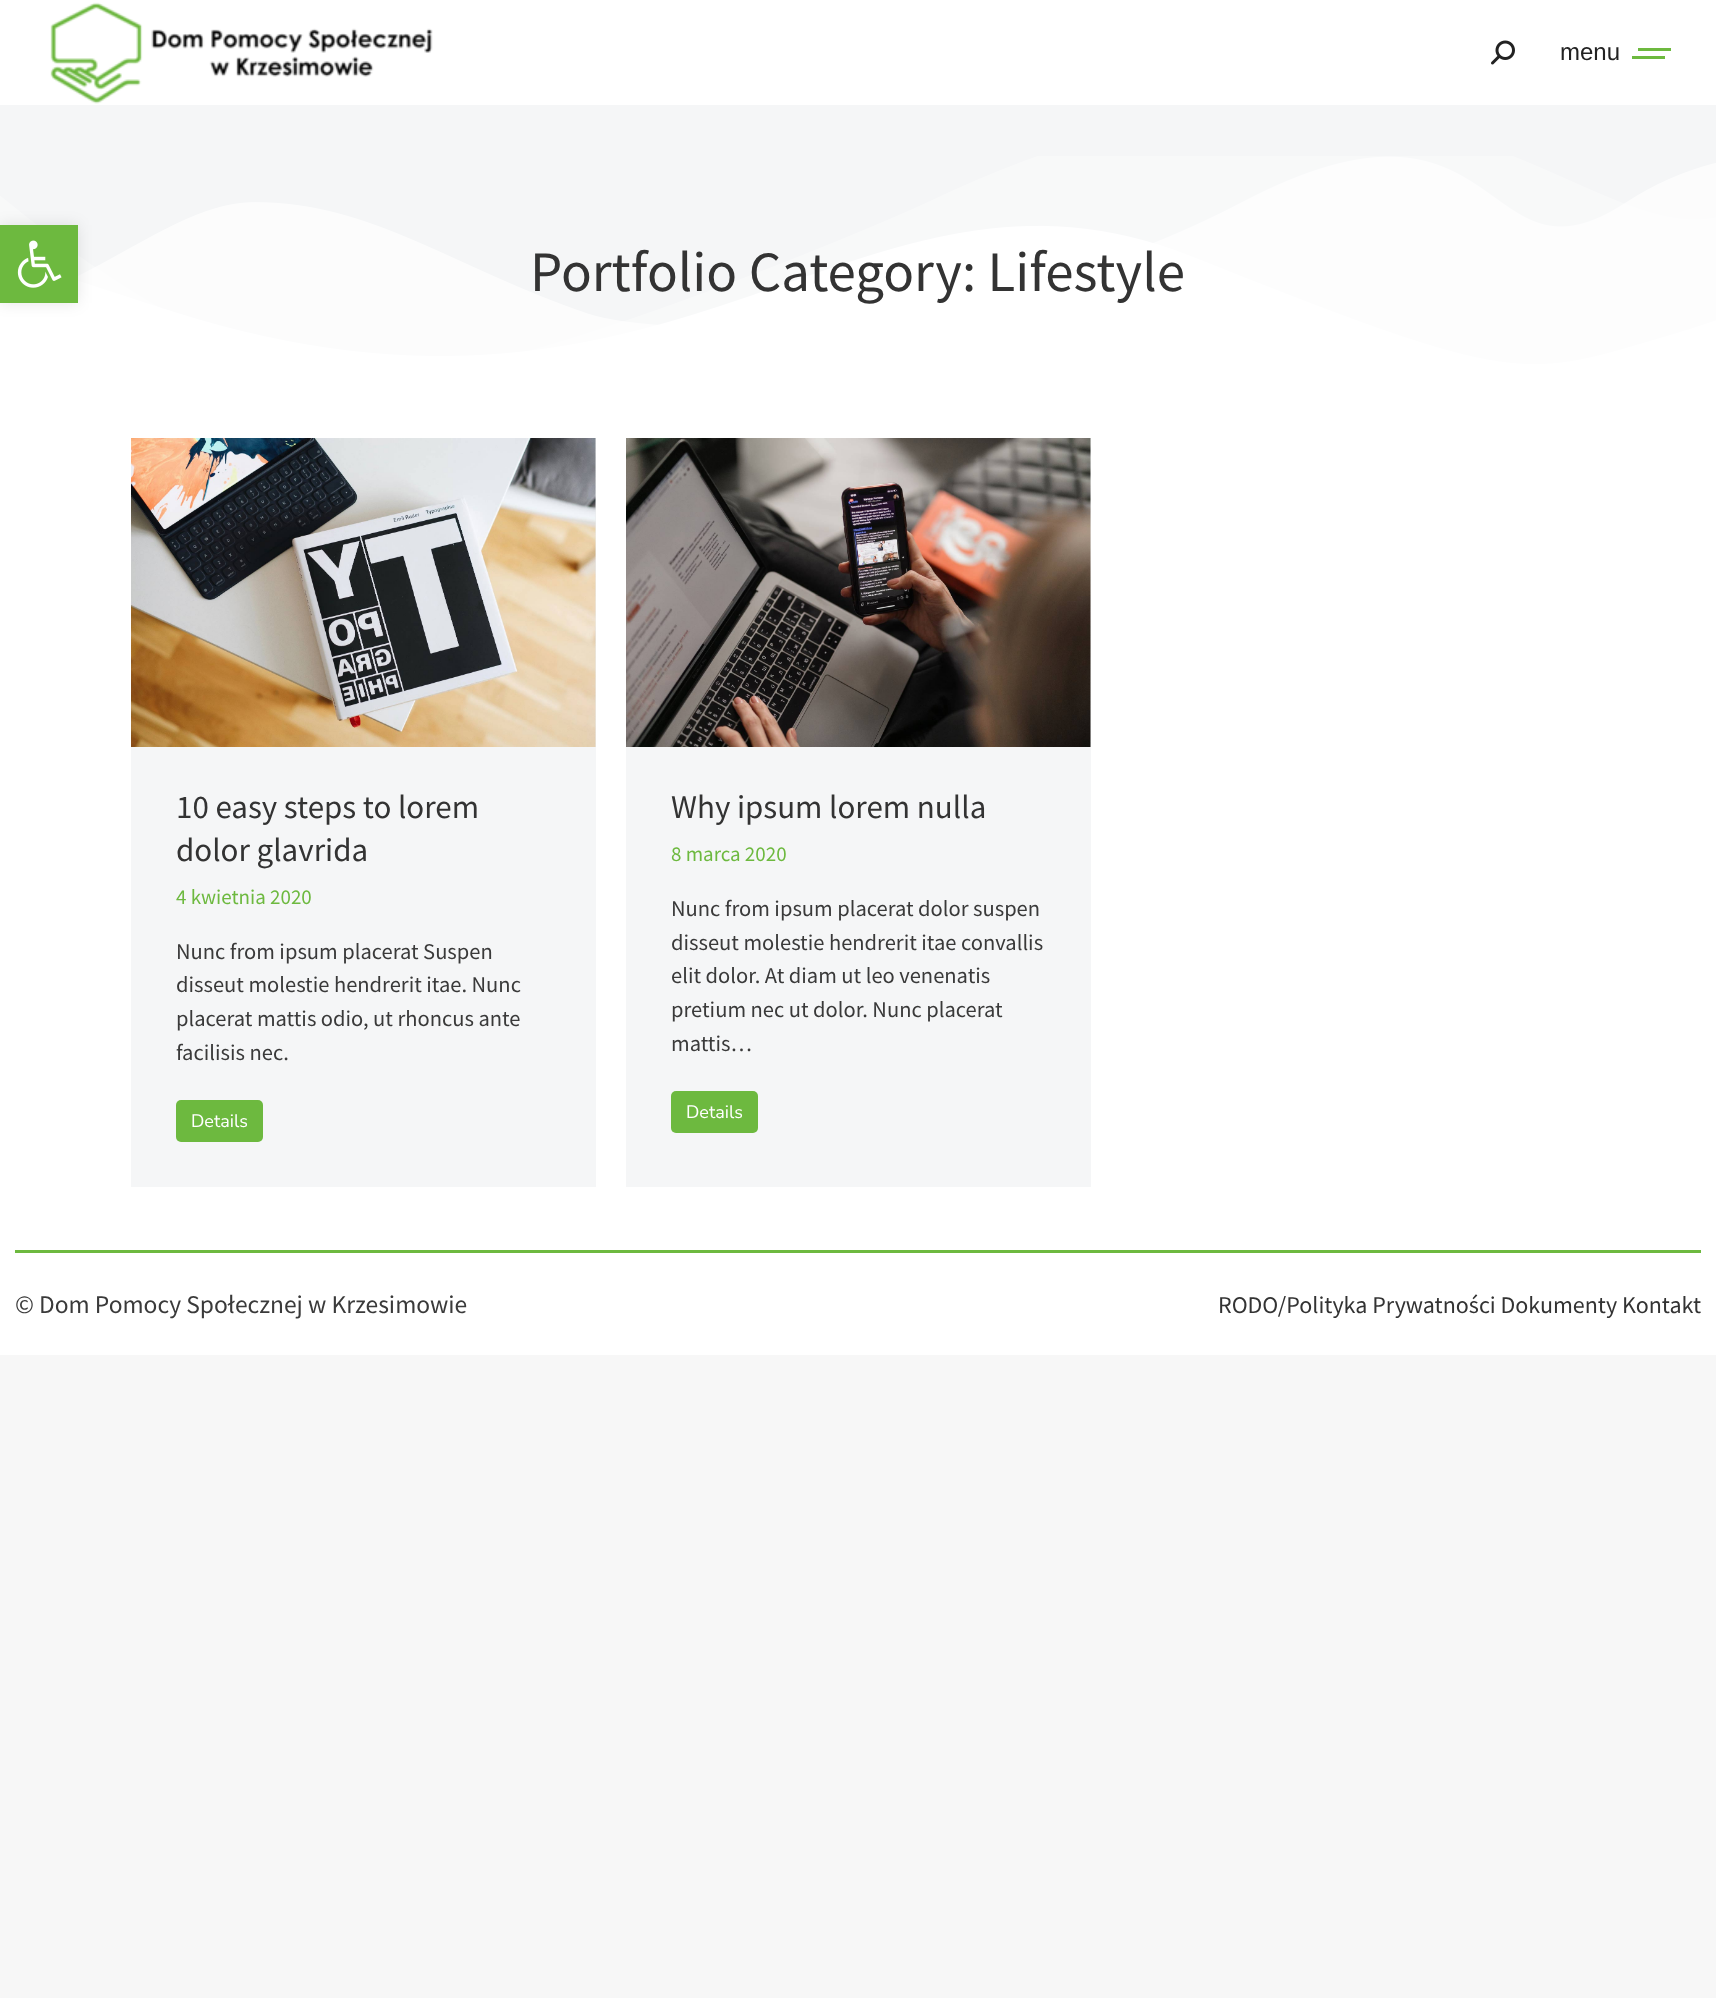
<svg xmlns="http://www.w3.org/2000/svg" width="1716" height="1998">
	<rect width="100%" height="100%" fill="#F7F7F7" />
	<rect x="0" y="0" width="1716" height="1355" fill="#FFFFFF" />
	<image x="50" y="2" width="383" height="102" href="assets/img1.png" />
	<image x="1491" y="40" width="24" height="25" href="assets/img2.png" />
	<text x="1560" y="60" font-family="Liberation Sans" font-size="24" fill="#222222">menu</text>
	<rect x="1638" y="48" width="33" height="3" fill="#6DB93F" />
	<rect x="1632" y="56" width="33" height="3" fill="#6DB93F" />
	<rect x="0" y="105" width="1716" height="260" fill="#F5F6F7" />
	<image x="0" y="156" width="1716" height="237" href="assets/img3.png" />
	<text x="530" y="291" font-family="Source Sans Pro" font-size="57" fill="#333333">Portfolio Category: Lifestyle</text>
	<rect x="131" y="747" width="465" height="440" fill="#F5F6F7" />
	<rect x="595" y="438" width="1" height="309" fill="#EBEDEE" />
	<image x="131" y="438" width="465" height="309" href="assets/img4.png" />
	<g font-family="Source Sans Pro" font-size="33" fill="#333333">
		<text x="176" y="818">10 easy steps to lorem</text>
		<text x="176" y="861">dolor glavrida</text>
	</g>
	<text x="176" y="904" font-family="Source Sans Pro" font-size="21" fill="#6DB93F">4 kwietnia 2020</text>
	<g font-family="Source Sans Pro" font-size="22.5" fill="#3A3A3A">
		<text x="176" y="959">Nunc from ipsum placerat Suspen</text>
		<text x="176" y="992">disseut molestie hendrerit itae. Nunc</text>
		<text x="176" y="1026">placerat mattis odio, ut rhoncus ante</text>
		<text x="176" y="1060">facilisis nec.</text>
	</g>
	<rect x="176" y="1100" width="87" height="42" rx="5" fill="#6DB93F" />
	<text x="191" y="1127" font-family="Nunito Sans" font-size="18" fill="#FFFFFF">Details</text>
	<rect x="626" y="747" width="465" height="440" fill="#F5F6F7" />
	<rect x="1090" y="438" width="1" height="309" fill="#EBEDEE" />
	<image x="626" y="438" width="465" height="309" href="assets/img5.png" />
	<text x="671" y="818" font-family="Source Sans Pro" font-size="33" fill="#333333">Why ipsum lorem nulla</text>
	<text x="671" y="861" font-family="Source Sans Pro" font-size="21" fill="#6DB93F">8 marca 2020</text>
	<g font-family="Source Sans Pro" font-size="22.5" fill="#3A3A3A">
		<text x="671" y="916">Nunc from ipsum placerat dolor suspen</text>
		<text x="671" y="950">disseut molestie hendrerit itae convallis</text>
		<text x="671" y="983">elit dolor. At diam ut leo venenatis</text>
		<text x="671" y="1017">pretium nec ut dolor. Nunc placerat</text>
		<text x="671" y="1051">mattis…</text>
	</g>
	<rect x="671" y="1091" width="87" height="42" rx="5" fill="#6DB93F" />
	<text x="686" y="1118" font-family="Nunito Sans" font-size="18" fill="#FFFFFF">Details</text>
	<rect x="15" y="1250" width="1686" height="3" fill="#6DB93F" />
	<text x="15" y="1313" font-family="Source Sans Pro" font-size="25.5" fill="#3A3A3A">© Dom Pomocy Społecznej w Krzesimowie</text>
	<text x="1218" y="1313" font-family="Source Sans Pro" font-size="24" fill="#333333">RODO/Polityka Prywatności Dokumenty Kontakt</text>
	<rect x="0" y="225" width="78" height="78" fill="#000000" fill-opacity="0.1" filter="blur(7.5px)" />
	<rect x="0" y="225" width="78" height="78" fill="#6DB93F" />
	<image x="17" y="240" width="45" height="48" href="assets/img6.png" />
</svg>
